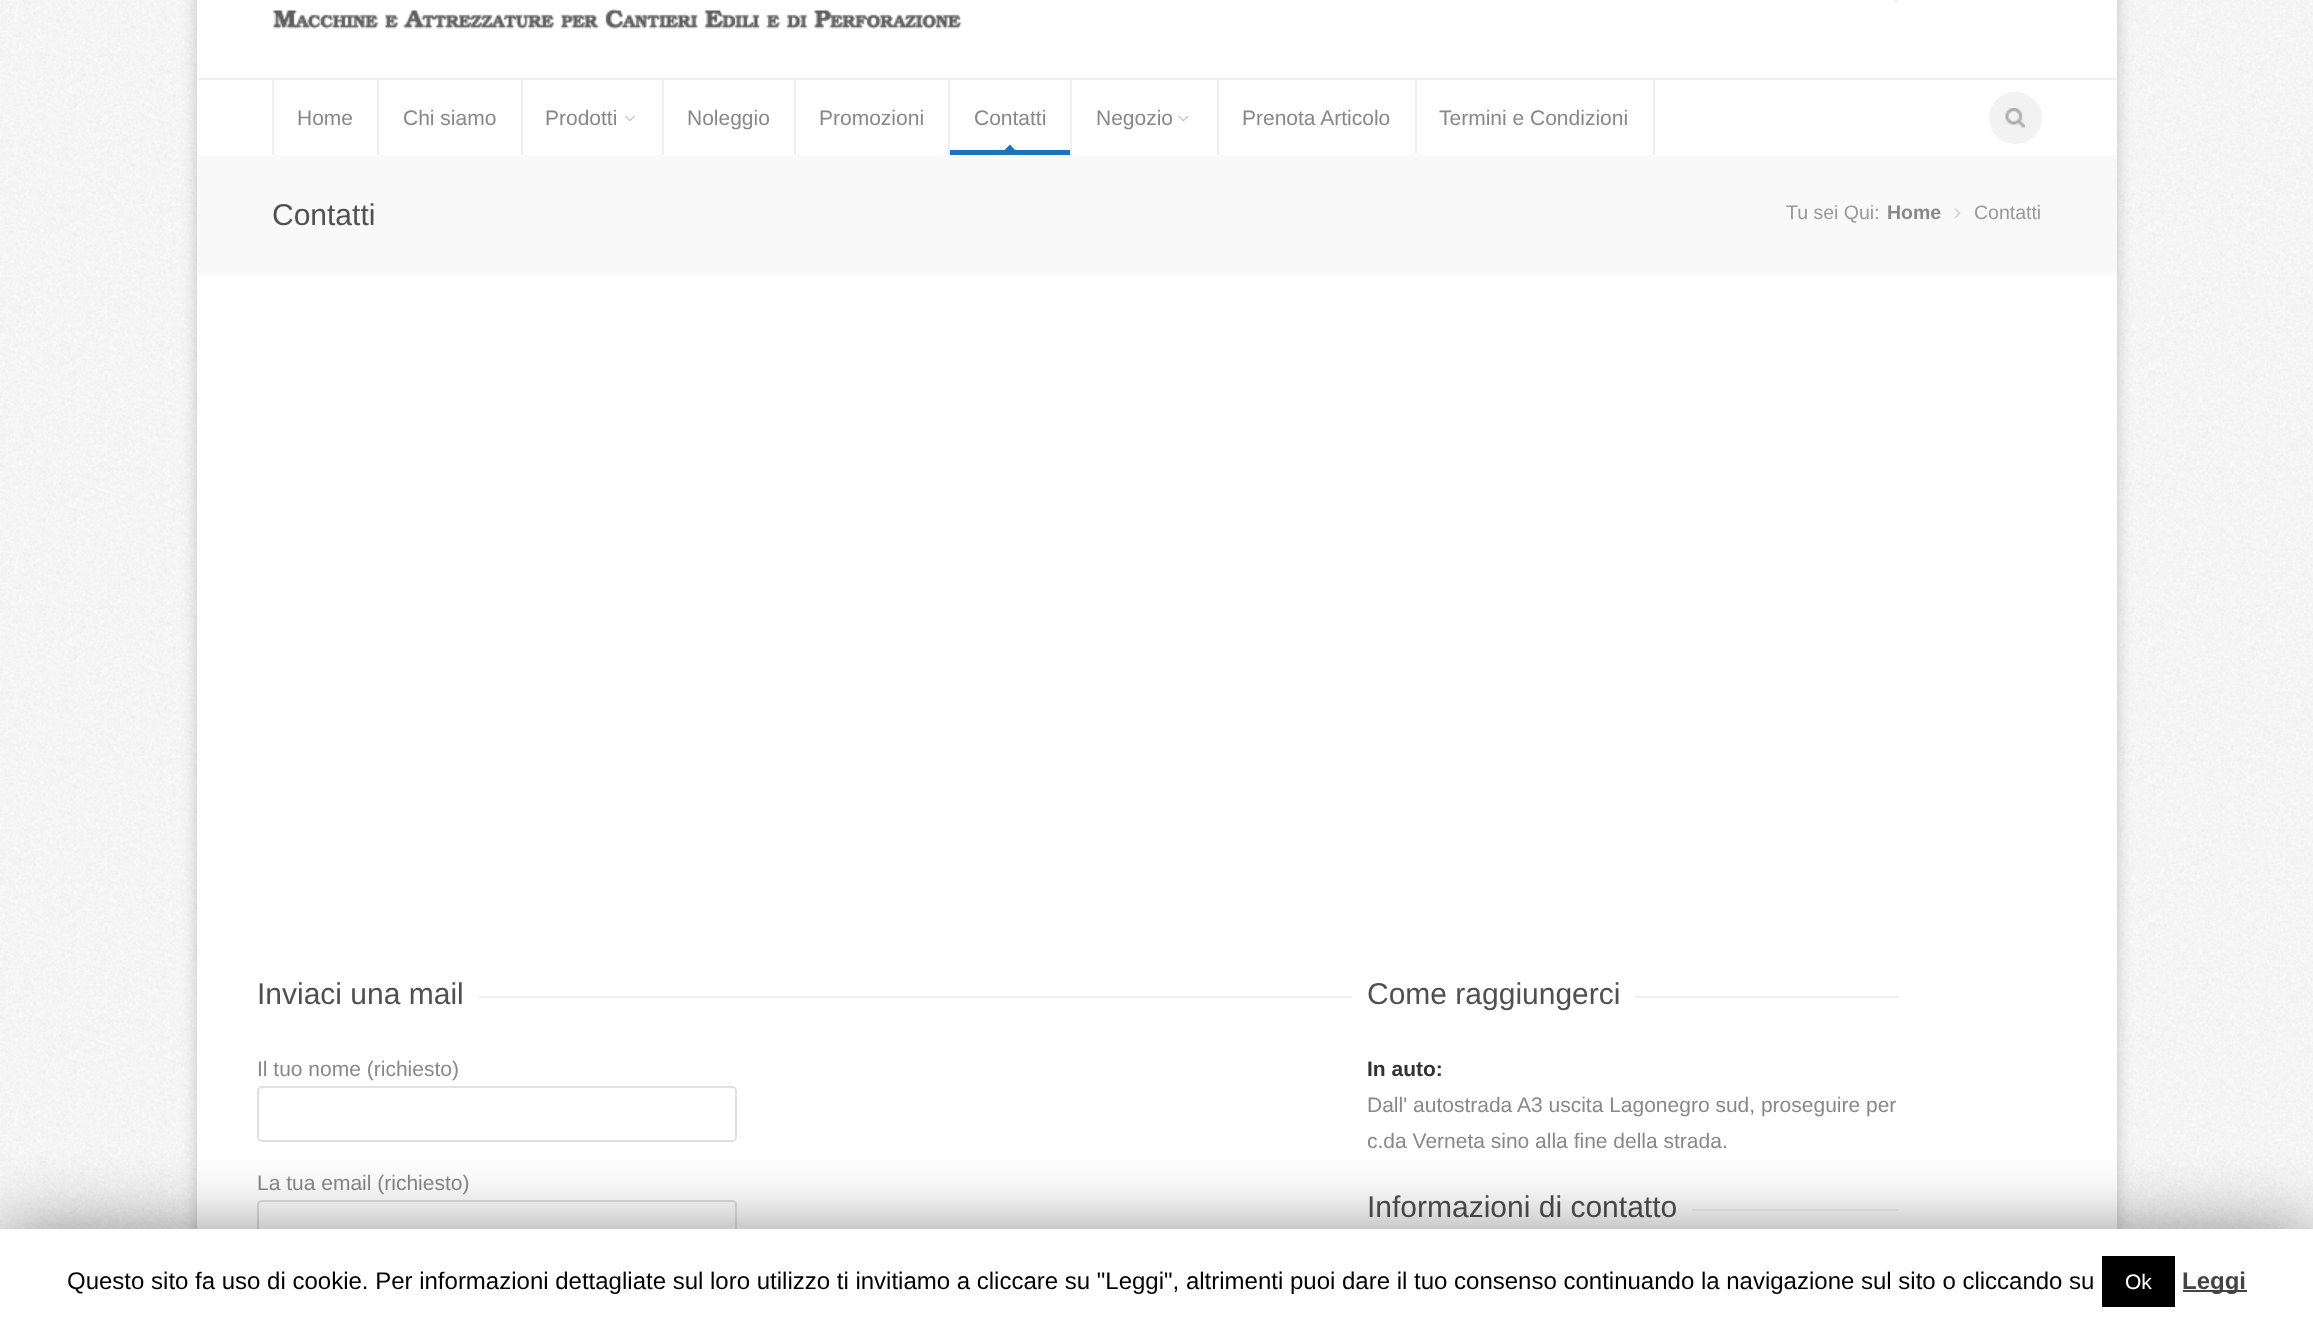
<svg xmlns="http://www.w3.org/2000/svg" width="2313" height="1325">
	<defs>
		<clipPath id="clip1"><rect x="950" y="80" width="120" height="70" /></clipPath>
	</defs>
	<rect width="100%" height="100%" fill="#FFFFFF" />
	<image x="0" y="0" width="2313" height="1229" href="assets/img1.png" />
	<rect x="197" y="-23" width="1920" height="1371" fill="#000000" fill-opacity="0.2" filter="blur(7.5px)" />
	<rect x="197" y="0" width="1920" height="155" fill="#FFFFFF" />
	<rect x="1895" y="0" width="2" height="2" fill="#E9E9E9" />
	<image x="272" y="8" width="690" height="21" href="assets/img2.png" />
	<rect x="197" y="78" width="1920" height="2" fill="#F0F0F0" />
	<rect x="377" y="80" width="2" height="75" fill="#F0F0F0" />
	<rect x="272" y="80" width="2" height="75" fill="#F0F0F0" />
	<text x="297" y="125" font-family="Liberation Sans" font-size="21" fill="#888888">Home</text>
	<rect x="521" y="80" width="2" height="75" fill="#F0F0F0" />
	<text x="403" y="125" font-family="Liberation Sans" font-size="21" fill="#888888">Chi siamo</text>
	<rect x="662" y="80" width="2" height="75" fill="#F0F0F0" />
	<text x="545" y="125" font-family="Liberation Sans" font-size="21" fill="#888888">Prodotti</text>
	<image x="624" y="115" width="11" height="7" href="assets/img3.png" />
	<rect x="794" y="80" width="2" height="75" fill="#F0F0F0" />
	<text x="687" y="125" font-family="Liberation Sans" font-size="21" fill="#888888">Noleggio</text>
	<rect x="948" y="80" width="2" height="75" fill="#F0F0F0" />
	<text x="819" y="125" font-family="Liberation Sans" font-size="21" fill="#888888">Promozioni</text>
	<rect x="1070" y="80" width="2" height="75" fill="#F0F0F0" />
	<rect x="950" y="150" width="120" height="5" fill="#1E73BE" />
	<text x="974" y="125" font-family="Liberation Sans" font-size="21" fill="#888888">Contatti</text>
	<g clip-path="url(#clip1)">
		<path d="M1010 144.5L1015 150L1010 155.5L1004.5 150Z" fill="#1E73BE" />
	</g>
	<rect x="1217" y="80" width="2" height="75" fill="#F0F0F0" />
	<text x="1096" y="125" font-family="Liberation Sans" font-size="21" fill="#888888">Negozio</text>
	<image x="1178" y="115" width="11" height="7" href="assets/img4.png" />
	<rect x="1415" y="80" width="2" height="75" fill="#F0F0F0" />
	<text x="1242" y="125" font-family="Liberation Sans" font-size="21" fill="#888888">Prenota Articolo</text>
	<rect x="1653" y="80" width="2" height="75" fill="#F0F0F0" />
	<text x="1439" y="125" font-family="Liberation Sans" font-size="21" fill="#888888">Termini e Condizioni</text>
	<rect x="1989" y="92" width="53" height="52" rx="26" fill="#F2F2F2" />
	<image x="2005" y="108" width="20" height="20" href="assets/img5.png" />
	<rect x="197" y="275" width="1920" height="954" fill="#FFFFFF" />
	<rect x="197" y="155" width="1920" height="120" fill="#F9F9F9" />
	<text x="272" y="225" font-family="Liberation Sans" font-size="30" fill="#505050">Contatti</text>
	<text x="1786" y="219" font-family="Liberation Sans" font-size="19.5" fill="#999999">Tu sei Qui:</text>
	<text x="1887" y="219" font-family="Liberation Sans" font-size="19.5" font-weight="700" fill="#888888">Home</text>
	<image x="1954" y="208" width="7" height="11" href="assets/img6.png" />
	<text x="1974" y="219" font-family="Liberation Sans" font-size="19.5" fill="#999999">Contatti</text>
	<text x="257" y="1004" font-family="Liberation Sans" font-size="30" fill="#505050">Inviaci una mail</text>
	<rect x="479" y="996" width="873" height="2" fill="#F0F0F0" />
	<text x="257" y="1076" font-family="Liberation Sans" font-size="21" fill="#888888">Il tuo nome (richiesto)</text>
	<rect x="258" y="1087" width="478" height="54" rx="4" fill="none" stroke="#E0E0E0" stroke-width="2" />
	<text x="257" y="1190" font-family="Liberation Sans" font-size="21" fill="#888888">La tua email (richiesto)</text>
	<rect x="258" y="1201" width="478" height="54" rx="4" fill="none" stroke="#E0E0E0" stroke-width="2" />
	<text x="1367" y="1004" font-family="Liberation Sans" font-size="30" fill="#505050">Come raggiungerci</text>
	<rect x="1635" y="996" width="264" height="2" fill="#F0F0F0" />
	<text x="1367" y="1076" font-family="Liberation Sans" font-size="21" font-weight="700" fill="#333333">In auto:</text>
	<g font-family="Liberation Sans" font-size="21" fill="#888888">
		<text x="1367" y="1112">Dall' autostrada A3 uscita Lagonegro sud, proseguire per</text>
		<text x="1367" y="1148">c.da Verneta sino alla fine della strada.</text>
	</g>
	<text x="1367" y="1217" font-family="Liberation Sans" font-size="30" fill="#505050">Informazioni di contatto</text>
	<rect x="1692" y="1209" width="207" height="2" fill="#F0F0F0" />
	<rect x="0" y="1236" width="2313" height="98" fill="#000000" fill-opacity="0.5" filter="blur(37.5px)" />
	<rect x="0" y="1229" width="2313" height="96" fill="#FFFFFF" />
	<text x="67" y="1289" font-family="Liberation Sans" font-size="24" fill="#000000">Questo sito fa uso di cookie. Per informazioni dettagliate sul loro utilizzo ti invitiamo a cliccare su "Leggi", altrimenti puoi dare il tuo consenso continuando la navigazione sul sito o cliccando su</text>
	<rect x="2102" y="1256" width="73" height="51" fill="#000000" />
	<text x="2125" y="1289" font-family="Liberation Sans" font-size="21" fill="#FFFFFF">Ok</text>
	<rect x="2183" y="1290" width="64" height="2" fill="#444444" />
	<text x="2182" y="1289" font-family="Liberation Sans" font-size="24" font-weight="700" fill="#444444">Leggi</text>
</svg>
